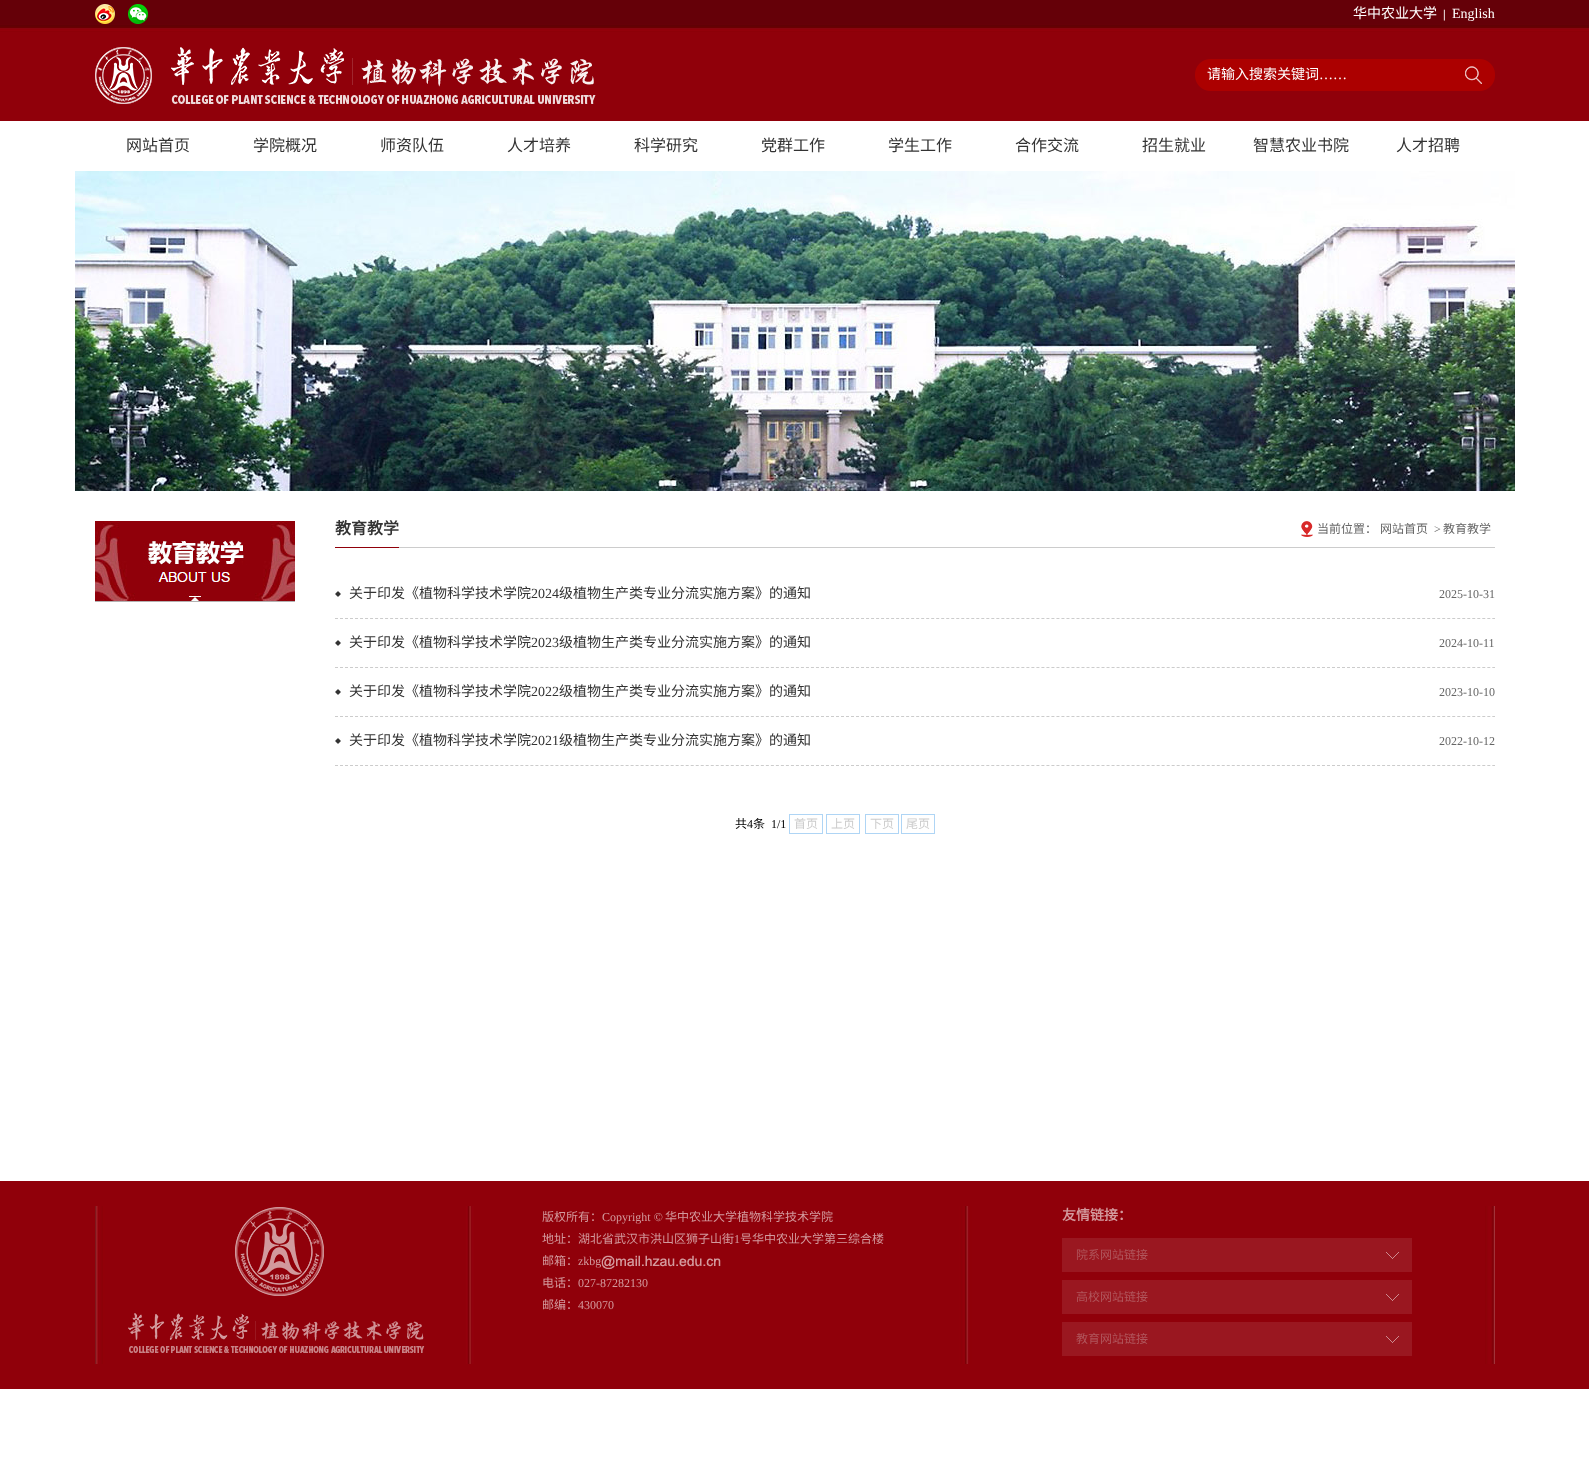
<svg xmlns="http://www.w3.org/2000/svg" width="1589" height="1460">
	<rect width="100%" height="100%" fill="#FFFFFF" />
	<image x="0" y="0" width="1589" height="121" href="assets/img1.png" />
	<image x="95" y="4" width="20" height="20" href="assets/img2.png" />
	<image x="128" y="4" width="20" height="20" href="assets/img3.png" />
	<text x="1353" y="18" font-family="Noto Sans CJK SC" font-size="14" fill="#FFFFFF">华中农业大学</text>
	<text x="1443" y="18" font-family="Liberation Serif" font-size="12" font-weight="700" fill="#FFFFFF">|</text>
	<text x="1452" y="18" font-family="Liberation Serif" font-size="14" fill="#FFFFFF">English</text>
	<image x="95" y="47" width="501" height="57" href="assets/img4.png" />
	<image x="1195" y="59" width="300" height="32" href="assets/img5.png" />
	<text x="1207" y="79" font-family="Noto Sans CJK SC" font-size="14" fill="#FFFFFF">请输入搜索关键词</text>
	<text x="1319" y="79" font-family="Liberation Serif" font-size="14" fill="#FFFFFF">……</text>
	<g font-family="Noto Sans CJK SC" font-size="16" fill="#333333">
		<text x="126" y="151">网站首页</text>
		<text x="253" y="151">学院概况</text>
		<text x="380" y="151">师资队伍</text>
		<text x="507" y="151">人才培养</text>
		<text x="634" y="151">科学研究</text>
		<text x="761" y="151">党群工作</text>
		<text x="888" y="151">学生工作</text>
		<text x="1015" y="151">合作交流</text>
		<text x="1142" y="151">招生就业</text>
		<text x="1253" y="151">智慧农业书院</text>
		<text x="1396" y="151">人才招聘</text>
	</g>
	<image x="75" y="171" width="1440" height="320" href="assets/img6.png" />
	<image x="95" y="521" width="200" height="80" href="assets/img7.png" />
	<image x="99" y="540" width="192" height="57" href="assets/img8.png" />
	<rect x="95" y="601" width="200" height="1" fill="#B3B1B1" />
	<rect x="399" y="547" width="1096" height="1" fill="#CCCCCC" />
	<rect x="335" y="547" width="64" height="1" fill="#90000A" />
	<text x="335" y="534" font-family="Noto Sans CJK SC" font-size="16" font-weight="700" fill="#333333">教育教学</text>
	<image x="1301" y="521" width="12" height="16" href="assets/img9.png" />
	<g font-family="Noto Sans CJK SC" font-size="12" fill="#666666">
		<text x="1317" y="533">当前位置：</text>
		<text x="1380" y="533">网站首页</text>
	</g>
	<text x="1434" y="533" font-family="Liberation Serif" font-size="12" fill="#666666">&gt;</text>
	<text x="1443" y="533" font-family="Noto Sans CJK SC" font-size="12" fill="#666666">教育教学</text>
	<path d="M335 618.5H1495" fill="none" stroke="#CCCCCC" stroke-dasharray="3 2.01" />
	<image x="335" y="591" width="6" height="6" href="assets/img10.png" />
	<text x="349" y="598" font-family="Noto Sans CJK SC" font-size="14" fill="#333333">关于印发《植物科学技术学院</text>
	<text x="531" y="598" font-family="Liberation Serif" font-size="14" fill="#333333">2024</text>
	<text x="559" y="598" font-family="Noto Sans CJK SC" font-size="14" fill="#333333">级植物生产类专业分流实施方案》的通知</text>
	<text x="1439" y="598" font-family="Liberation Serif" font-size="12" fill="#666666">2025-10-31</text>
	<path d="M335 667.5H1495" fill="none" stroke="#CCCCCC" stroke-dasharray="3 2.01" />
	<image x="335" y="640" width="6" height="6" href="assets/img10.png" />
	<text x="349" y="647" font-family="Noto Sans CJK SC" font-size="14" fill="#333333">关于印发《植物科学技术学院</text>
	<text x="531" y="647" font-family="Liberation Serif" font-size="14" fill="#333333">2023</text>
	<text x="559" y="647" font-family="Noto Sans CJK SC" font-size="14" fill="#333333">级植物生产类专业分流实施方案》的通知</text>
	<text x="1439" y="647" font-family="Liberation Serif" font-size="12" fill="#666666">2024-10-11</text>
	<path d="M335 716.5H1495" fill="none" stroke="#CCCCCC" stroke-dasharray="3 2.01" />
	<image x="335" y="689" width="6" height="6" href="assets/img10.png" />
	<text x="349" y="696" font-family="Noto Sans CJK SC" font-size="14" fill="#333333">关于印发《植物科学技术学院</text>
	<text x="531" y="696" font-family="Liberation Serif" font-size="14" fill="#333333">2022</text>
	<text x="559" y="696" font-family="Noto Sans CJK SC" font-size="14" fill="#333333">级植物生产类专业分流实施方案》的通知</text>
	<text x="1439" y="696" font-family="Liberation Serif" font-size="12" fill="#666666">2023-10-10</text>
	<path d="M335 765.5H1495" fill="none" stroke="#CCCCCC" stroke-dasharray="3 2.01" />
	<image x="335" y="738" width="6" height="6" href="assets/img10.png" />
	<text x="349" y="745" font-family="Noto Sans CJK SC" font-size="14" fill="#333333">关于印发《植物科学技术学院</text>
	<text x="531" y="745" font-family="Liberation Serif" font-size="14" fill="#333333">2021</text>
	<text x="559" y="745" font-family="Noto Sans CJK SC" font-size="14" fill="#333333">级植物生产类专业分流实施方案》的通知</text>
	<text x="1439" y="745" font-family="Liberation Serif" font-size="12" fill="#666666">2022-10-12</text>
	<text x="735" y="828" font-family="Noto Sans CJK SC" font-size="12" fill="#000000">共</text>
	<text x="747" y="828" font-family="Liberation Serif" font-size="12" fill="#000000">4</text>
	<text x="753" y="828" font-family="Noto Sans CJK SC" font-size="12" fill="#000000">条</text>
	<text x="771" y="828" font-family="Liberation Serif" font-size="12" fill="#000000">1/1</text>
	<rect x="789.5" y="814.5" width="33" height="19" fill="none" stroke="#AFD5F5" />
	<text x="794" y="828" font-family="Noto Sans CJK SC" font-size="12" fill="#CCCCCC">首页</text>
	<rect x="826.5" y="814.5" width="33" height="19" fill="none" stroke="#AFD5F5" />
	<text x="831" y="828" font-family="Noto Sans CJK SC" font-size="12" fill="#CCCCCC">上页</text>
	<rect x="865.5" y="814.5" width="33" height="19" fill="none" stroke="#AFD5F5" />
	<text x="870" y="828" font-family="Noto Sans CJK SC" font-size="12" fill="#CCCCCC">下页</text>
	<rect x="901.5" y="814.5" width="33" height="19" fill="none" stroke="#AFD5F5" />
	<text x="906" y="828" font-family="Noto Sans CJK SC" font-size="12" fill="#CCCCCC">尾页</text>
	<rect x="0" y="1181" width="1589" height="208" fill="#90000A" />
	<image x="95" y="1206" width="1400" height="158" href="assets/img11.png" />
	<image x="128" y="1207" width="297" height="146" href="assets/img12.png" />
	<text x="542" y="1221" font-family="Noto Sans CJK SC" font-size="12" fill="#D3999D">版权所有：</text>
	<text x="602" y="1221" font-family="Liberation Serif" font-size="12" fill="#D3999D">Copyright ©</text>
	<g font-family="Noto Sans CJK SC" font-size="12" fill="#D3999D">
		<text x="665" y="1221">华中农业大学植物科学技术学院</text>
		<text x="542" y="1243">地址：湖北省武汉市洪山区狮子山街</text>
	</g>
	<text x="734" y="1243" font-family="Liberation Serif" font-size="12" fill="#D3999D">1</text>
	<g font-family="Noto Sans CJK SC" font-size="12" fill="#D3999D">
		<text x="740" y="1243">号华中农业大学第三综合楼</text>
		<text x="542" y="1265">邮箱：</text>
	</g>
	<text x="578" y="1265" font-family="Liberation Serif" font-size="12" fill="#D3999D">zkbg</text>
	<image x="601" y="1255" width="120" height="14" href="assets/img13.png" />
	<text x="542" y="1287" font-family="Noto Sans CJK SC" font-size="12" fill="#D3999D">电话：</text>
	<text x="578" y="1287" font-family="Liberation Serif" font-size="12" fill="#D3999D">027-87282130</text>
	<text x="542" y="1309" font-family="Noto Sans CJK SC" font-size="12" fill="#D3999D">邮编：</text>
	<text x="578" y="1309" font-family="Liberation Serif" font-size="12" fill="#D3999D">430070</text>
	<text x="1062" y="1220" font-family="Noto Sans CJK SC" font-size="14" font-weight="700" fill="#D3999D">友情链接：</text>
	<rect x="1062" y="1238" width="350" height="34" fill="#9A1720" />
	<text x="1076" y="1259" font-family="Noto Sans CJK SC" font-size="12" fill="#B1565C">院系网站链接</text>
	<image x="1386" y="1252" width="13" height="7" href="assets/img14.png" />
	<rect x="1062" y="1280" width="350" height="34" fill="#9A1720" />
	<text x="1076" y="1301" font-family="Noto Sans CJK SC" font-size="12" fill="#B1565C">高校网站链接</text>
	<image x="1386" y="1294" width="13" height="7" href="assets/img14.png" />
	<rect x="1062" y="1322" width="350" height="34" fill="#9A1720" />
	<text x="1076" y="1343" font-family="Noto Sans CJK SC" font-size="12" fill="#B1565C">教育网站链接</text>
	<image x="1386" y="1336" width="13" height="7" href="assets/img14.png" />
</svg>
